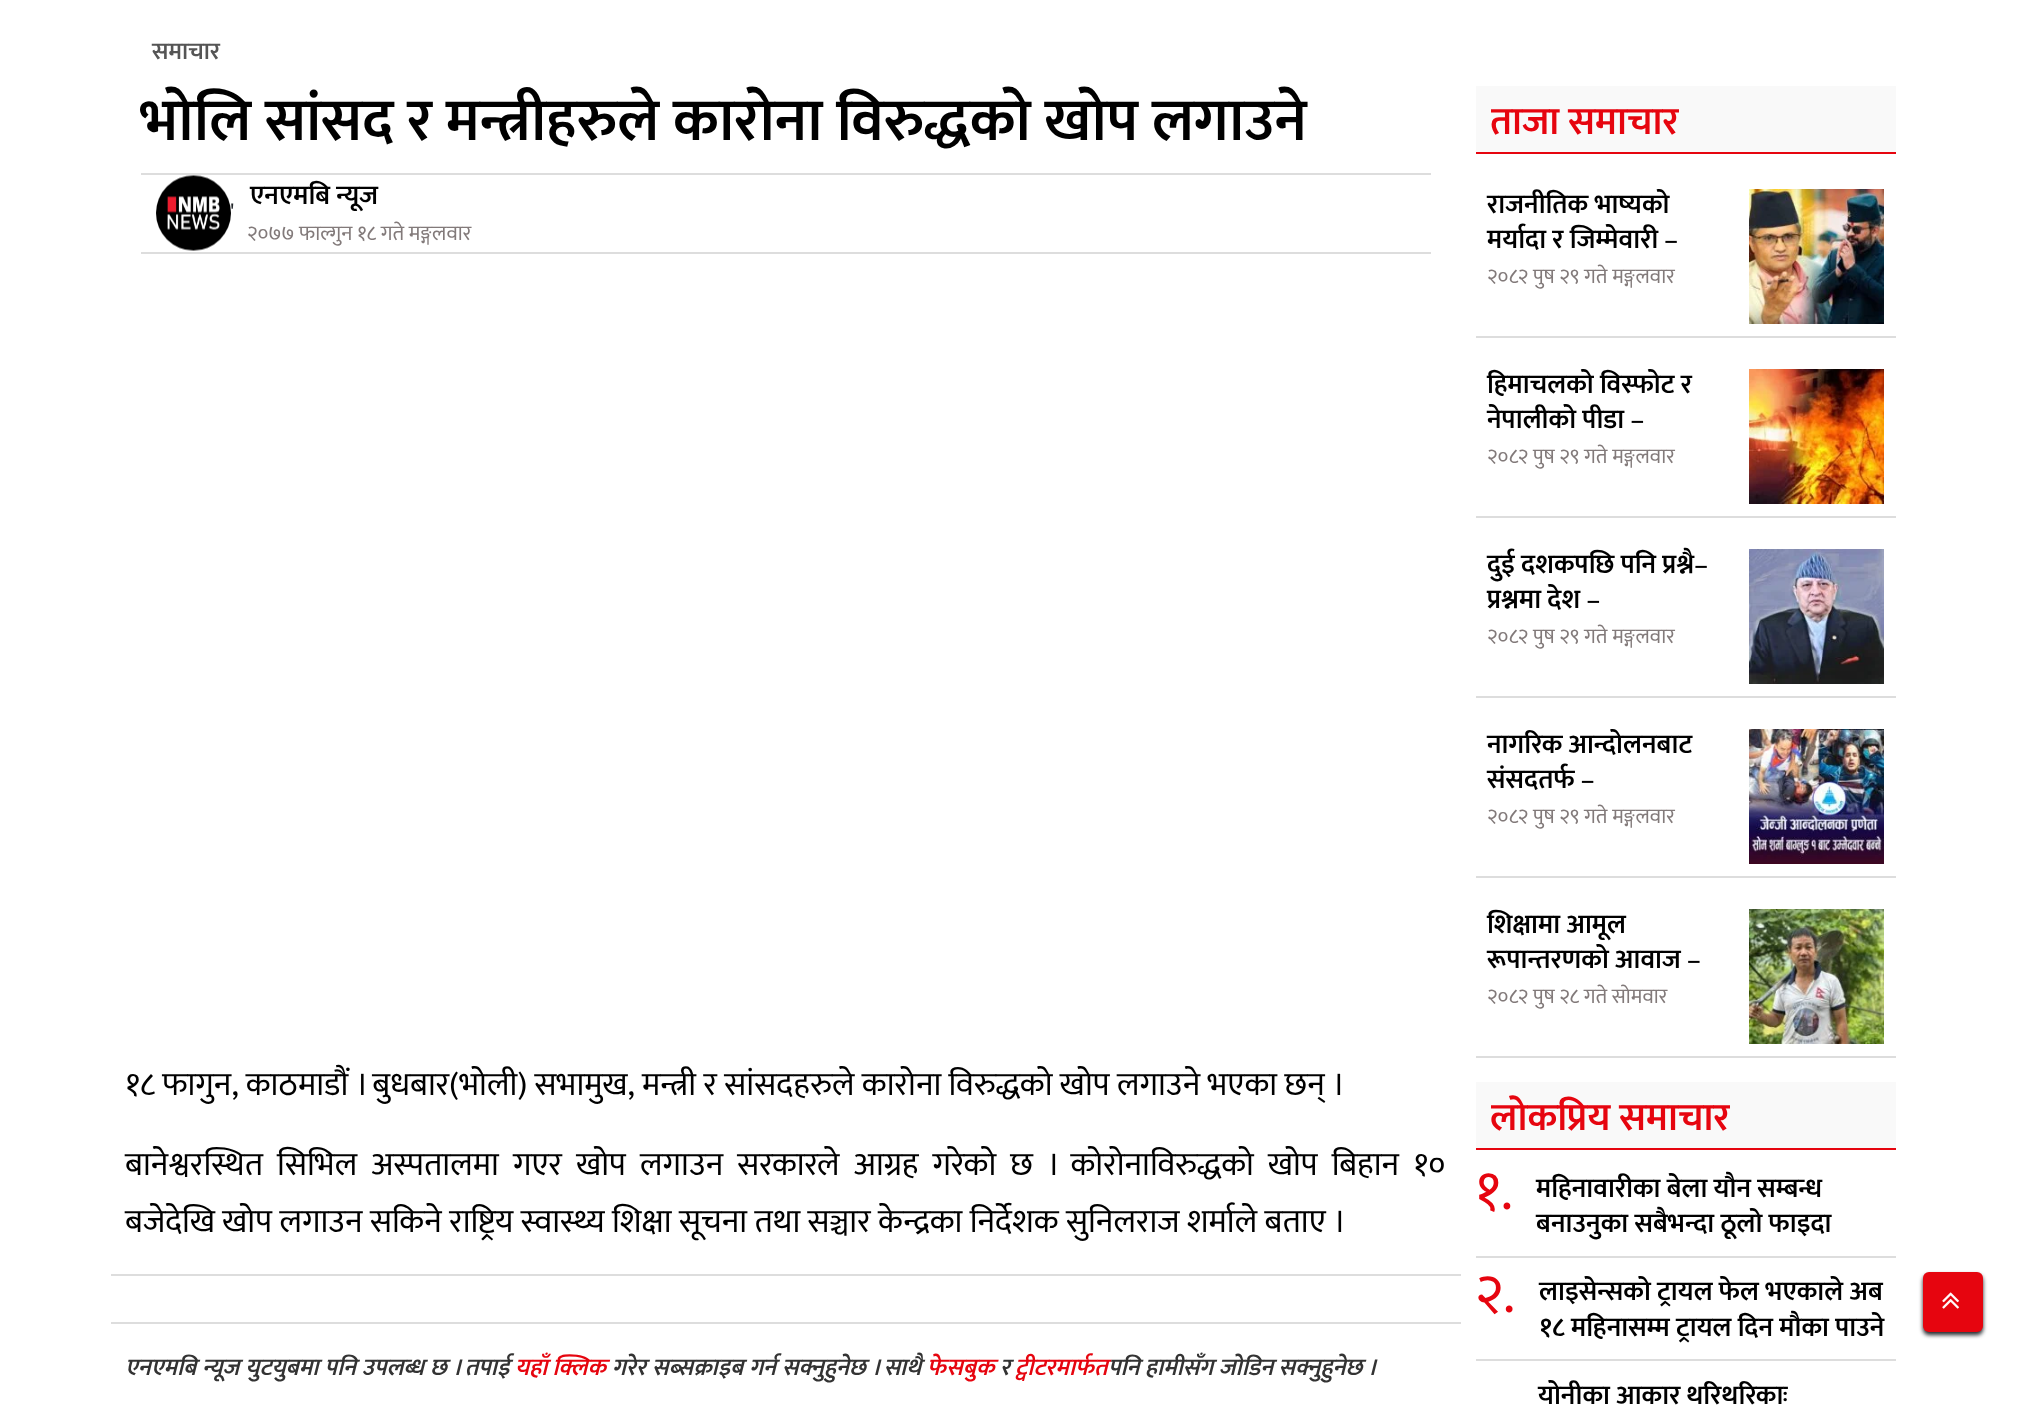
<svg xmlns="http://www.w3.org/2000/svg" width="2020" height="1407">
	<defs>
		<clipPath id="clip1"><rect x="1491" y="93" width="188" height="59" /></clipPath>
		<clipPath id="clip2"><rect x="1491" y="1089" width="239" height="59" /></clipPath>
	</defs>
	<rect width="100%" height="100%" fill="#FFFFFF" />
	<text x="152" y="59" font-family="Mukta" font-size="24" font-weight="600" fill="#555555">समाचार</text>
	<text x="140" y="140" font-family="Mukta" font-size="60" font-weight="600" fill="#000000">भोलि सांसद र मन्त्रीहरुले कारोना विरुद्धको खोप लगाउने</text>
	<rect x="141" y="173" width="1290" height="2" fill="#DDDDDD" />
	<rect x="141" y="252" width="1290" height="2" fill="#DDDDDD" />
	<image x="156" y="175" width="75" height="76" href="assets/img1.png" />
	<text x="230" y="219" font-family="Mukta" font-size="24" fill="#212529">'</text>
	<text x="250" y="204" font-family="Mukta" font-size="27" font-weight="600" fill="#000000">एनएमबि न्यूज</text>
	<text x="247" y="240" font-family="Mukta" font-size="21" fill="#827A7A">२०७७ फाल्गुन १८ गते मङ्गलवार</text>
	<g font-family="Mukta" font-size="33" fill="#000000">
		<text x="125" y="1095">१८ फागुन, काठमाडौं । बुधबार(भोली) सभामुख, मन्त्री र सांसदहरुले कारोना विरुद्धको खोप लगाउने भएका छन् ।</text>
		<text x="125" y="1175" word-spacing="6.75">बानेश्वरस्थित सिभिल अस्पतालमा गएर खोप लगाउन सरकारले आग्रह गरेको छ । कोरोनाविरुद्धको खोप बिहान १०</text>
		<text x="125" y="1232">बजेदेखि खोप लगाउन सकिने राष्ट्रिय स्वास्थ्य शिक्षा सूचना तथा सञ्चार केन्द्रका निर्देशक सुनिलराज शर्माले बताए ।</text>
	</g>
	<rect x="111" y="1274" width="1350" height="2" fill="#DDDDDD" />
	<rect x="111" y="1322" width="1350" height="2" fill="#DDDDDD" />
	<text x="125" y="1375" word-spacing="0.5" font-family="Mukta" font-size="24" font-weight="600" font-style="italic" fill="#333333">एनएमबि न्यूज युटयुबमा पनि उपलब्ध छ । तपाई</text>
	<text x="515" y="1375" font-family="Mukta" font-size="24" font-weight="600" font-style="italic" fill="#E6050F">यहाँ क्लिक</text>
	<text x="612" y="1375" word-spacing="0.5" font-family="Mukta" font-size="24" font-weight="600" font-style="italic" fill="#333333">गरेर सब्सक्राइब गर्न सक्नुहुनेछ । साथै</text>
	<text x="927" y="1375" font-family="Mukta" font-size="24" font-weight="600" font-style="italic" fill="#E6050F">फेसबुक</text>
	<text x="1000" y="1375" font-family="Mukta" font-size="24" font-weight="600" font-style="italic" fill="#333333">र</text>
	<text x="1015" y="1375" font-family="Mukta" font-size="24" font-weight="600" font-style="italic" fill="#E6050F">ट्वीटरमार्फत</text>
	<text x="1108" y="1375" font-family="Mukta" font-size="24" font-weight="600" font-style="italic" fill="#333333">पनि हामीसँग जोडिन सक्नुहुनेछ ।</text>
	<rect x="1476" y="86" width="420" height="66" fill="#F9F9F9" />
	<rect x="1476" y="152" width="420" height="2" fill="#E6050F" />
	<g clip-path="url(#clip1)">
		<text x="1490" y="134" font-family="Mukta" font-size="39" font-weight="600" fill="#E6050F">ताजा समाचार</text>
	</g>
	<rect x="1476" y="336" width="420" height="2" fill="#DDDDDD" />
	<g font-family="Mukta" font-size="27" font-weight="600" fill="#000000">
		<text x="1487" y="213">राजनीतिक भाष्यको</text>
		<text x="1487" y="248">मर्यादा र जिम्मेवारी –</text>
	</g>
	<text x="1487" y="283" font-family="Mukta" font-size="21" fill="#827A7A">२०८२ पुष २९ गते मङ्गलवार</text>
	<image x="1749" y="189" width="135" height="135" href="assets/img2.png" />
	<rect x="1476" y="516" width="420" height="2" fill="#DDDDDD" />
	<g font-family="Mukta" font-size="27" font-weight="600" fill="#000000">
		<text x="1487" y="393">हिमाचलको विस्फोट र</text>
		<text x="1487" y="428">नेपालीको पीडा –</text>
	</g>
	<text x="1487" y="463" font-family="Mukta" font-size="21" fill="#827A7A">२०८२ पुष २९ गते मङ्गलवार</text>
	<image x="1749" y="369" width="135" height="135" href="assets/img3.png" />
	<rect x="1476" y="696" width="420" height="2" fill="#DDDDDD" />
	<g font-family="Mukta" font-size="27" font-weight="600" fill="#000000">
		<text x="1487" y="573">दुई दशकपछि पनि प्रश्नै–</text>
		<text x="1487" y="608">प्रश्नमा देश –</text>
	</g>
	<text x="1487" y="643" font-family="Mukta" font-size="21" fill="#827A7A">२०८२ पुष २९ गते मङ्गलवार</text>
	<image x="1749" y="549" width="135" height="135" href="assets/img4.png" />
	<rect x="1476" y="876" width="420" height="2" fill="#DDDDDD" />
	<g font-family="Mukta" font-size="27" font-weight="600" fill="#000000">
		<text x="1487" y="753">नागरिक आन्दोलनबाट</text>
		<text x="1487" y="788">संसदतर्फ –</text>
	</g>
	<text x="1487" y="823" font-family="Mukta" font-size="21" fill="#827A7A">२०८२ पुष २९ गते मङ्गलवार</text>
	<image x="1749" y="729" width="135" height="135" href="assets/img5.png" />
	<rect x="1476" y="1056" width="420" height="2" fill="#DDDDDD" />
	<g font-family="Mukta" font-size="27" font-weight="600" fill="#000000">
		<text x="1487" y="933">शिक्षामा आमूल</text>
		<text x="1487" y="968">रूपान्तरणको आवाज –</text>
	</g>
	<text x="1487" y="1003" font-family="Mukta" font-size="21" fill="#827A7A">२०८२ पुष २८ गते सोमवार</text>
	<image x="1749" y="909" width="135" height="135" href="assets/img6.png" />
	<rect x="1476" y="1082" width="420" height="66" fill="#F9F9F9" />
	<rect x="1476" y="1148" width="420" height="2" fill="#E6050F" />
	<g clip-path="url(#clip2)">
		<text x="1490" y="1130" font-family="Mukta" font-size="39" font-weight="600" fill="#E6050F">लोकप्रिय समाचार</text>
	</g>
	<rect x="1476" y="1256" width="420" height="2" fill="#DDDDDD" />
	<text x="1475" y="1209" font-family="Mukta" font-size="56" fill="#E6050F">१.</text>
	<g font-family="Mukta" font-size="27" font-weight="600" fill="#000000">
		<text x="1536" y="1197">महिनावारीका बेला यौन सम्बन्ध</text>
		<text x="1536" y="1232">बनाउनुका सबैभन्दा ठूलो फाइदा</text>
	</g>
	<rect x="1476" y="1359" width="420" height="2" fill="#DDDDDD" />
	<text x="1475" y="1312" font-family="Mukta" font-size="56" fill="#E6050F">२.</text>
	<g font-family="Mukta" font-size="27" font-weight="600" fill="#000000">
		<text x="1539" y="1300">लाइसेन्सको ट्रायल फेल भएकाले अब</text>
		<text x="1539" y="1336">१८ महिनासम्म ट्रायल दिन मौका पाउने</text>
		<text x="1538" y="1404">योनीका आकार थरिथरिकाः</text>
	</g>
	<rect x="1923" y="1275" width="60" height="60" rx="6" fill="#212529" filter="blur(2px)" />
	<rect x="1923" y="1272" width="60" height="60" rx="6" fill="#E6050F" />
	<image x="1942" y="1292" width="17" height="17" href="assets/img7.png" />
</svg>
